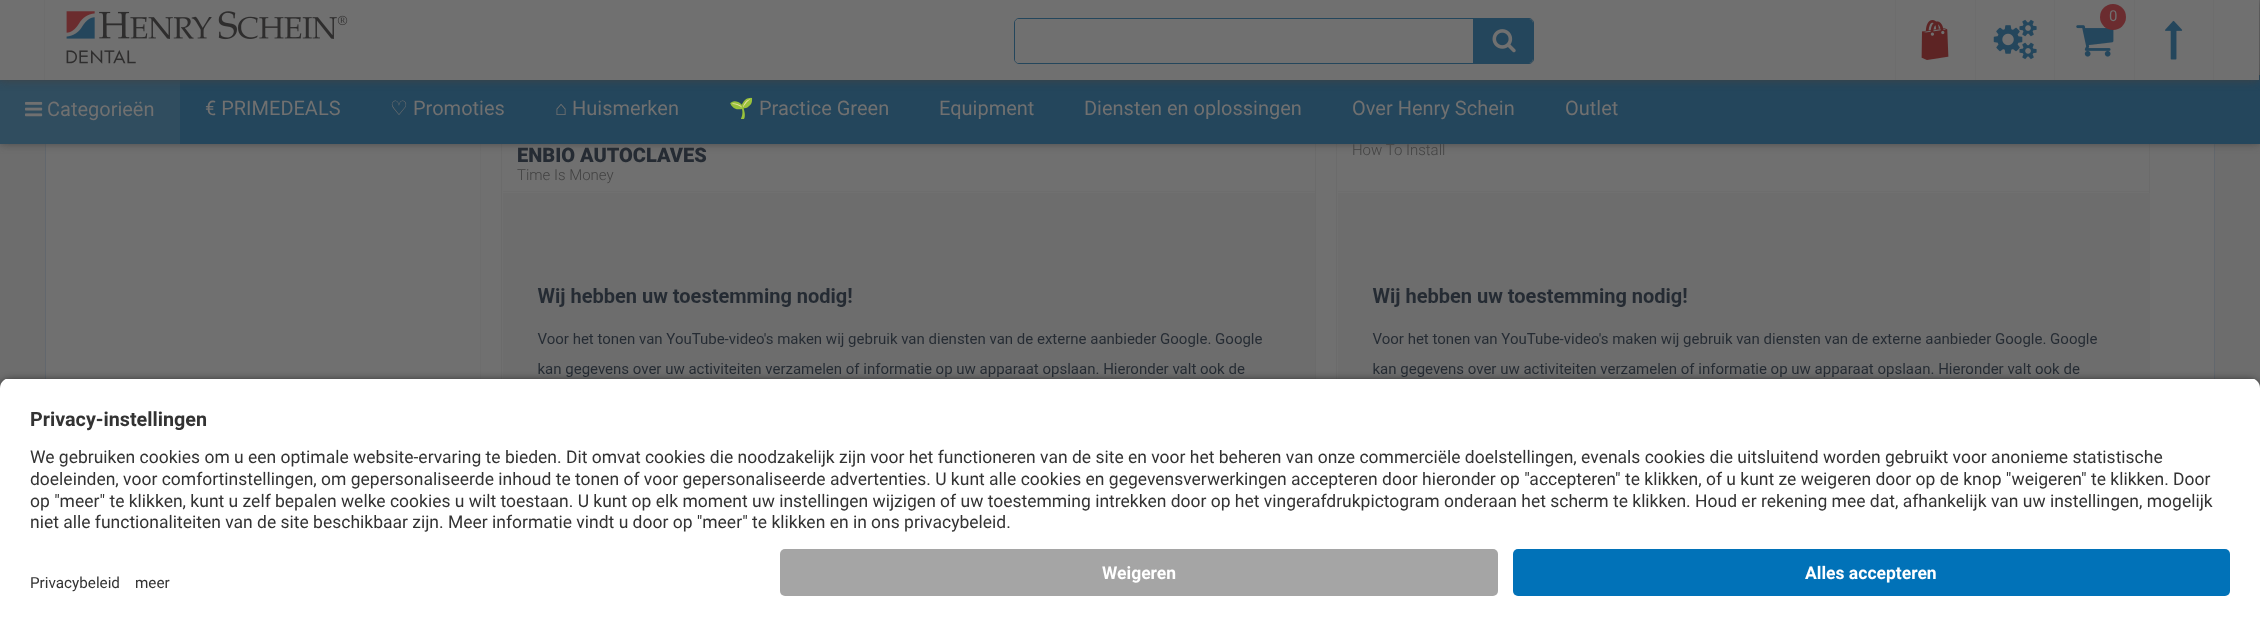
<svg xmlns="http://www.w3.org/2000/svg" width="2260" height="626">
	<defs>
		<clipPath id="clip1"><path d="M10 378H2250C2255.5 378 2260 382.5 2260 388V539H0V388C0 382.5 4.5 378 10 378Z" /></clipPath>
	</defs>
	<rect width="100%" height="100%" fill="#6D6D6D" />
	<rect x="46" y="144" width="2168" height="235" fill="#707070" />
	<rect x="45.5" y="-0.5" width="2169" height="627" fill="none" stroke="#62676D" />
	<rect x="480" y="144" width="1" height="235" fill="#6D6D6D" />
	<rect x="501.5" y="131.5" width="814" height="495" fill="none" stroke="#6B6B6B" />
	<rect x="1336.5" y="131.5" width="813" height="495" fill="none" stroke="#6B6B6B" />
	<rect x="0" y="75" width="2260" height="68" fill="#424242" filter="blur(5px)" />
	<text x="1352" y="155" font-family="Roboto" font-size="15" font-weight="300" fill="#424242">How To Install</text>
	<rect x="180" y="75" width="2080" height="69" fill="#24465C" />
	<rect x="0" y="80" width="180" height="64" fill="#304D5F" />
	<rect x="-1" y="0" width="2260" height="80" fill="#424242" filter="blur(5px)" />
	<rect x="0" y="0" width="2259" height="80" fill="#707070" />
	<rect x="44" y="0" width="1" height="80" fill="#6D6D6D" />
	<image x="66" y="11" width="282" height="53" href="assets/img1.png" />
	<rect x="1895" y="0" width="1" height="80" fill="#6D6D6D" />
	<image x="1921" y="20" width="28" height="40" href="assets/img2.png" />
	<rect x="1975" y="0" width="1" height="80" fill="#6D6D6D" />
	<image x="1993" y="19" width="44" height="41" href="assets/img3.png" />
	<rect x="2054" y="0" width="1" height="80" fill="#6D6D6D" />
	<image x="2076" y="25" width="38" height="32" href="assets/img4.png" />
	<circle cx="2113" cy="17" r="13" fill="#6B2C2F" />
	<text x="2109" y="21" font-family="Roboto" font-size="15" fill="#707070">0</text>
	<rect x="2213" y="0" width="1" height="80" fill="#6D6D6D" />
	<rect x="2134" y="0" width="1" height="80" fill="#6D6D6D" />
	<image x="2165" y="20" width="18" height="40" href="assets/img5.png" />
	<rect x="1014.5" y="18.5" width="519" height="45" rx="4.5" fill="none" stroke="#24465C" />
	<rect x="1015" y="19" width="518" height="44" rx="4" fill="#707070" />
	<path d="M1473 19H1529C1531 19 1533 21 1533 23V59C1533 61 1531 63 1529 63H1473Z" fill="#24465C" />
	<image x="1492" y="29" width="24" height="24" href="assets/img6.png" />
	<image x="25" y="101" width="18" height="16" href="assets/img7.png" />
	<g font-family="Roboto" font-size="20" fill="#707070">
		<text x="47" y="116">Categorieën</text>
		<text x="205" y="115">€ PRIMEDEALS</text>
	</g>
	<text x="390" y="115" font-family="DejaVu Sans" font-size="20" fill="#707070">♡</text>
	<text x="413" y="115" font-family="Roboto" font-size="20" fill="#707070">Promoties</text>
	<text x="555" y="115" font-family="Liberation Sans" font-size="20" fill="#707070">⌂</text>
	<text x="572" y="115" font-family="Roboto" font-size="20" fill="#707070">Huismerken</text>
	<text x="729" y="115" font-family="Noto Color Emoji" font-size="20" fill="#707070">🌱</text>
	<g font-family="Roboto" font-size="20" fill="#707070">
		<text x="759" y="115">Practice Green</text>
		<text x="939" y="115">Equipment</text>
		<text x="1084" y="115">Diensten en oplossingen</text>
		<text x="1352" y="115">Over Henry Schein</text>
		<text x="1565" y="115">Outlet</text>
	</g>
	<rect x="503" y="191" width="812" height="1" fill="#6D6D6D" />
	<text x="517" y="162" font-family="Roboto" font-size="20" font-weight="900" fill="#252B33">ENBIO AUTOCLAVES</text>
	<text x="517" y="180" font-family="Roboto" font-size="15" font-weight="300" fill="#424242">Time Is Money</text>
	<image x="503" y="193" width="812" height="186" href="assets/img8.png" />
	<rect x="1338" y="191" width="811" height="1" fill="#6D6D6D" />
	<image x="1338" y="193" width="812" height="186" href="assets/img8.png" />
	<rect x="0" y="381" width="2260" height="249" rx="10" fill="#000000" fill-opacity="0.8" filter="blur(4.5px)" />
	<g clip-path="url(#clip1)">
		<rect x="0" y="379" width="2260" height="160" fill="#FFFFFF" />
	</g>
	<text x="30" y="426" font-family="Roboto" font-size="19.75" font-weight="700" fill="#333333">Privacy-instellingen</text>
	<g font-family="Roboto" font-size="17.5" fill="#333333">
		<text x="30" y="463">We gebruiken cookies om u een optimale website-ervaring te bieden. Dit omvat cookies die noodzakelijk zijn voor het functioneren van de site en voor het beheren van onze commerciële doelstellingen, evenals cookies die uitsluitend worden gebruikt voor anonieme statistische</text>
		<text x="30" y="485">doeleinden, voor comfortinstellingen, om gepersonaliseerde inhoud te tonen of voor gepersonaliseerde advertenties. U kunt alle cookies en gegevensverwerkingen accepteren door hieronder op "accepteren" te klikken, of u kunt ze weigeren door op de knop "weigeren" te klikken. Door</text>
		<text x="30" y="507">op "meer" te klikken, kunt u zelf bepalen welke cookies u wilt toestaan. U kunt op elk moment uw instellingen wijzigen of uw toestemming intrekken door op het vingerafdrukpictogram onderaan het scherm te klikken. Houd er rekening mee dat, afhankelijk van uw instellingen, mogelijk</text>
		<text x="30" y="528">niet alle functionaliteiten van de site beschikbaar zijn. Meer informatie vindt u door op "meer" te klikken en in ons privacybeleid.</text>
	</g>
	<rect x="0" y="539" width="2260" height="87" fill="#FFFFFF" />
	<g font-family="Roboto" font-size="15.25" fill="#333333">
		<text x="30" y="588">Privacybeleid</text>
		<text x="135" y="588">meer</text>
	</g>
	<rect x="780" y="549" width="718" height="47" rx="5" fill="#A5A5A5" />
	<text x="1102" y="579" font-family="Roboto" font-size="17.5" font-weight="700" fill="#FFFFFF">Weigeren</text>
	<rect x="1513" y="549" width="717" height="47" rx="5" fill="#0172B8" />
	<text x="1805" y="579" font-family="Roboto" font-size="17.5" font-weight="700" fill="#FFFFFF">Alles accepteren</text>
</svg>
